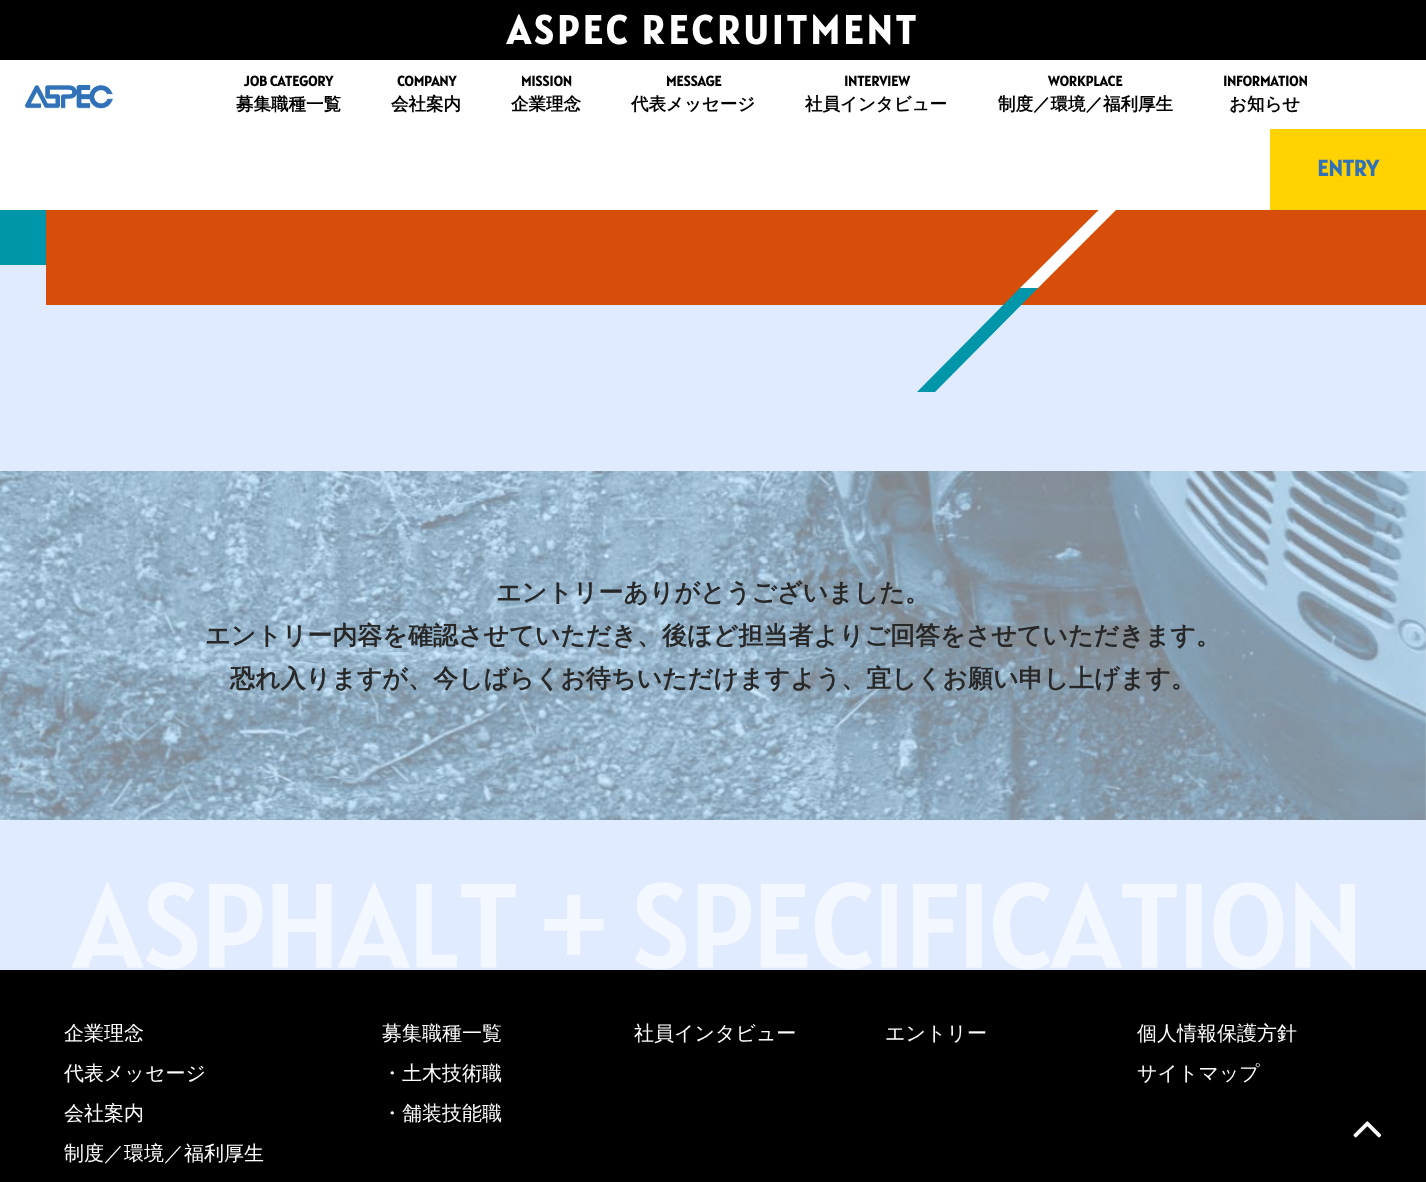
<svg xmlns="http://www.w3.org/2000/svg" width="1426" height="1182">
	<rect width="100%" height="100%" fill="#E1EBFF" />
	<rect x="46" y="210" width="1380" height="95" fill="#D74D0A" />
	<path d="M917 392L1024 284H1042L935 392Z" fill="#0096AA" />
	<path d="M1020 288L1128 181H1145L1038 288Z" fill="#FFFFFF" />
	<rect x="0" y="60" width="1426" height="150" fill="#FFFFFF" />
	<rect x="0" y="0" width="1426" height="60" fill="#000000" />
	<text x="507" y="44" font-family="Alatsi" font-size="40" font-weight="700" letter-spacing="3.75" fill="#FFFFFF">ASPEC RECRUITMENT</text>
	<image x="25" y="85" width="88" height="24" href="assets/img1.png" />
	<text x="244" y="86" font-family="Alatsi" font-size="14.25" font-weight="700" fill="#000000">JOB CATEGORY</text>
	<text x="236" y="110" font-family="WenQuanYi Zen Hei" font-size="17.5" font-weight="700" fill="#000000">募集職種一覧</text>
	<text x="397" y="86" font-family="Alatsi" font-size="14.25" font-weight="700" fill="#000000">COMPANY</text>
	<text x="391" y="110" font-family="WenQuanYi Zen Hei" font-size="17.5" font-weight="700" fill="#000000">会社案内</text>
	<text x="521" y="86" font-family="Alatsi" font-size="14.25" font-weight="700" fill="#000000">MISSION</text>
	<text x="511" y="110" font-family="WenQuanYi Zen Hei" font-size="17.5" font-weight="700" fill="#000000">企業理念</text>
	<text x="666" y="86" font-family="Alatsi" font-size="14.25" font-weight="700" fill="#000000">MESSAGE</text>
	<text x="631" y="110" font-family="WenQuanYi Zen Hei" font-size="17.5" font-weight="700" fill="#000000">代表メッセージ</text>
	<text x="844" y="86" font-family="Alatsi" font-size="14.25" font-weight="700" fill="#000000">INTERVIEW</text>
	<text x="805" y="110" font-family="WenQuanYi Zen Hei" font-size="17.5" font-weight="700" fill="#000000">社員インタビュー</text>
	<text x="1048" y="86" font-family="Alatsi" font-size="14.25" font-weight="700" fill="#000000">WORKPLACE</text>
	<text x="998" y="110" font-family="WenQuanYi Zen Hei" font-size="17.5" font-weight="700" fill="#000000">制度／環境／福利厚生</text>
	<text x="1223" y="86" font-family="Alatsi" font-size="14.25" font-weight="700" fill="#000000">INFORMATION</text>
	<text x="1229" y="110" font-family="WenQuanYi Zen Hei" font-size="17.5" font-weight="700" fill="#000000">お知らせ</text>
	<rect x="1270" y="129" width="156" height="81" fill="#FFD200" />
	<text x="1317" y="176" font-family="Alatsi" font-size="22.5" font-weight="700" fill="#3071B7">ENTRY</text>
	<rect x="0" y="210" width="46" height="55" fill="#0096AA" />
	<image x="0" y="471" width="1426" height="349" href="assets/img2.png" />
	<g font-family="WenQuanYi Zen Hei" font-size="25" font-weight="700" fill="#282828">
		<text x="496" y="601">エントリーありがとうございました。</text>
		<text x="205" y="644">エントリー内容を確認させていただき、後ほど担当者よりご回答をさせていただきます。</text>
		<text x="230" y="687">恐れ入りますが、今しばらくお待ちいただけますよう、宜しくお願い申し上げます。</text>
	</g>
	<rect x="0" y="970" width="1426" height="212" fill="#000000" />
	<image x="1353" y="1121" width="29" height="17" href="assets/img3.png" />
	<image x="71" y="882" width="1284" height="88" href="assets/img4.png" />
	<g font-family="WenQuanYi Zen Hei" font-size="20" font-weight="500" fill="#FFFFFF">
		<text x="64" y="1040">企業理念</text>
		<text x="64" y="1080">代表メッセージ</text>
		<text x="64" y="1120">会社案内</text>
		<text x="64" y="1160">制度／環境／福利厚生</text>
		<text x="382" y="1040">募集職種一覧</text>
		<text x="382" y="1080">・土木技術職</text>
		<text x="382" y="1120">・舗装技能職</text>
		<text x="634" y="1040">社員インタビュー</text>
		<text x="885" y="1040">エントリー</text>
		<text x="1137" y="1040">個人情報保護方針</text>
		<text x="1137" y="1080">サイトマップ</text>
	</g>
</svg>
